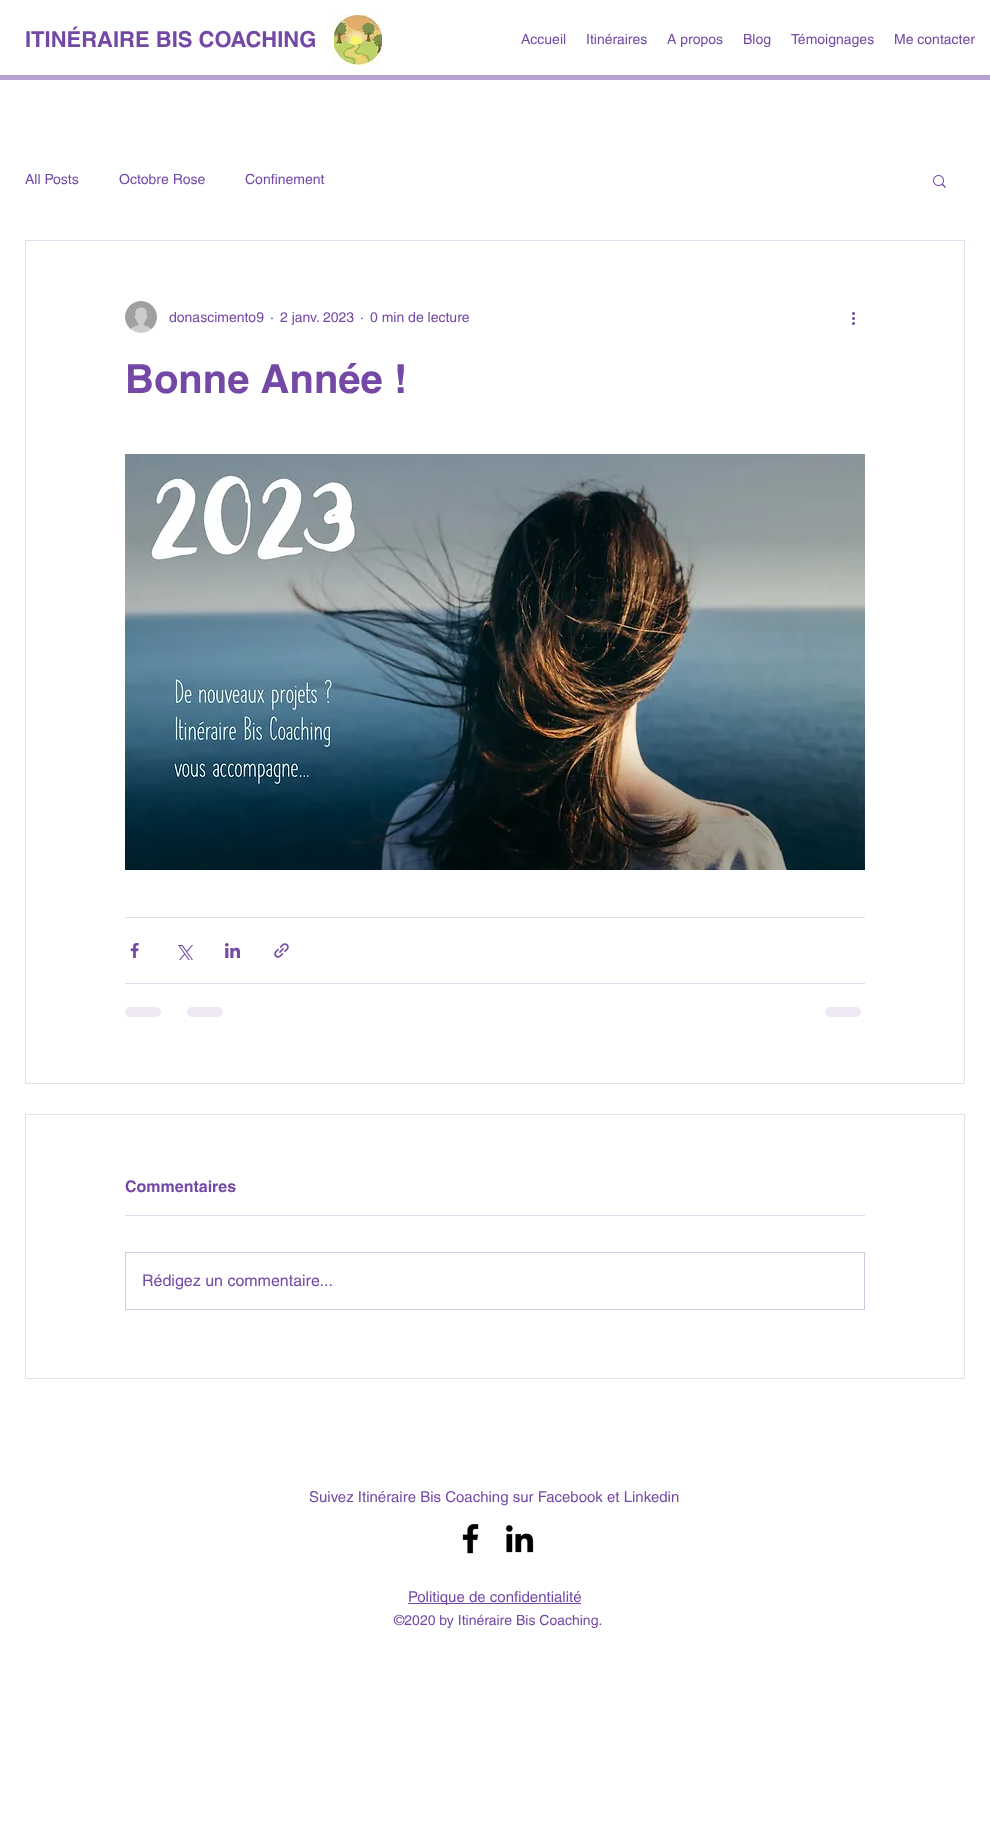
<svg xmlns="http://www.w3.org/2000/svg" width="990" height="1838">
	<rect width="100%" height="100%" fill="#FFFFFF" />
	<text x="25" y="47" font-family="helvetica" font-size="22" font-weight="700" fill="#7449A5">ITINÉRAIRE BIS COACHING</text>
	<image x="334" y="15" width="48" height="50" href="assets/img1.png" />
	<g font-family="helvetica" font-size="14" fill="#7449A5">
		<text x="521" y="44">Accueil</text>
		<text x="586" y="44">Itinéraires</text>
		<text x="667" y="44">A propos</text>
		<text x="743" y="44">Blog</text>
		<text x="791" y="44">Témoignages</text>
		<text x="894" y="44">Me contacter</text>
	</g>
	<rect x="0" y="75" width="990" height="5" fill="#B9A1D5" />
	<g font-family="helvetica" font-size="14" fill="#7449A5">
		<text x="25" y="184">All Posts</text>
		<text x="119" y="184">Octobre Rose</text>
		<text x="245" y="184">Confinement</text>
	</g>
	<image x="933" y="175" width="13" height="13" href="assets/img2.png" />
	<rect x="25.5" y="240.5" width="939" height="843" fill="none" stroke="#E5DCEF" />
	<image x="125" y="301" width="32" height="32" href="assets/img3.png" />
	<g font-family="helvetica" font-size="14" fill="#7449A5">
		<text x="169" y="322">donascimento9</text>
		<text x="270" y="322">·</text>
		<text x="280" y="322">2 janv. 2023</text>
		<text x="360" y="322">·</text>
		<text x="370" y="322">0 min de lecture</text>
	</g>
	<image x="852" y="312" width="3" height="13" href="assets/img4.png" />
	<text x="125" y="393" font-family="helvetica" font-size="40" font-weight="700" fill="#7449A5">Bonne Année !</text>
	<image x="125" y="454" width="740" height="416" href="assets/img5.png" />
	<rect x="125" y="917" width="740" height="1" fill="#E3DBED" />
	<image x="130" y="943" width="9" height="15" href="assets/img6.png" />
	<image x="178" y="945" width="15" height="15" href="assets/img7.png" />
	<image x="225" y="943" width="15" height="15" href="assets/img8.png" />
	<image x="274" y="943" width="15" height="15" href="assets/img9.png" />
	<rect x="125" y="983" width="740" height="1" fill="#E3DBED" />
	<rect x="125" y="1007" width="36" height="10" rx="5" fill="#EEE9F4" />
	<rect x="187" y="1007" width="36" height="10" rx="5" fill="#EEE9F4" />
	<rect x="825" y="1007" width="36" height="10" rx="5" fill="#EEE9F4" />
	<rect x="25.5" y="1114.5" width="939" height="264" fill="none" stroke="#E5DCEF" />
	<text x="125" y="1192" font-family="helvetica" font-size="16" font-weight="700" fill="#7449A5">Commentaires</text>
	<rect x="125" y="1215" width="740" height="1" fill="#E3DBED" />
	<rect x="125.5" y="1252.5" width="739" height="57" fill="none" stroke="#D5C8E4" />
	<text x="142" y="1286" font-family="helvetica" font-size="16" fill="#7449A5">Rédigez un commentaire...</text>
	<text x="309" y="1502" font-family="helvetica" font-size="15" fill="#7449A5">Suivez Itinéraire Bis Coaching sur Facebook et Linkedin</text>
	<image x="462" y="1524" width="17" height="30" href="assets/img10.png" />
	<image x="505" y="1525" width="29" height="28" href="assets/img11.png" />
	<rect x="408" y="1603" width="173" height="1" fill="#7449A5" />
	<text x="408" y="1602" font-family="helvetica" font-size="15" fill="#7449A5">Politique de confidentialité</text>
	<text x="394" y="1625" font-family="helvetica" font-size="14" fill="#7449A5">©2020 by Itinéraire Bis Coaching.</text>
</svg>
